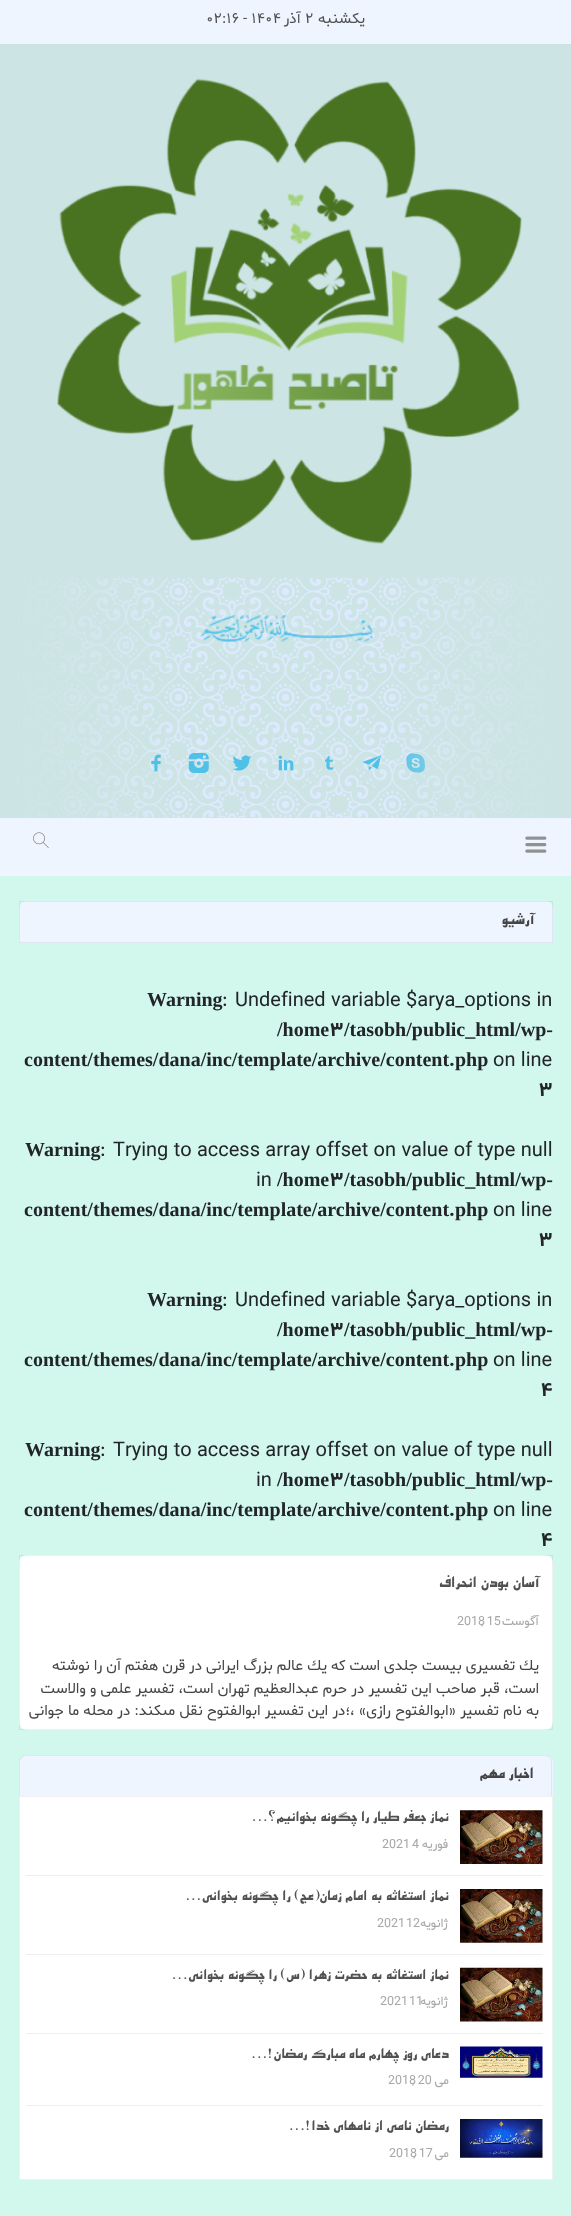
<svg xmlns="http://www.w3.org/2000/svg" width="571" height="2216">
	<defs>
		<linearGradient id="g1" gradientUnits="userSpaceOnUse" x1="19" y1="698" x2="195" y2="698"><stop offset="0" stop-color="#CCE5E4" /><stop offset="1" stop-color="#CCE5E4" stop-opacity="0" /></linearGradient>
		<linearGradient id="g2" gradientUnits="userSpaceOnUse" x1="553" y1="698" x2="376" y2="698"><stop offset="0" stop-color="#CCE5E4" /><stop offset="1" stop-color="#CCE5E4" stop-opacity="0" /></linearGradient>
	</defs>
	<rect width="100%" height="100%" fill="#D2F7EC" />
	<rect x="0" y="0" width="571" height="44" fill="#EFF5FF" />
	<g font-family="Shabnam" font-size="15" fill="#515151">
		<text x="206" y="23">۰۲:۱۶</text>
		<text x="243" y="23">- ۱۴۰۴</text>
	</g>
	<text x="301" y="23" font-family="Shabnam" font-size="15" direction="rtl" fill="#515151">آذر</text>
	<text x="305" y="23" font-family="Shabnam" font-size="15" fill="#515151">۲</text>
	<text x="365" y="23" font-family="Shabnam" font-size="15" direction="rtl" fill="#515151">یکشنبه</text>
	<rect x="0" y="44" width="571" height="774" fill="#CCE5E4" />
	<image x="57" y="78" width="465" height="466" href="assets/img1.png" />
	<image x="18" y="577" width="534" height="241" href="assets/img2.png" />
	<rect x="19" y="578" width="163" height="240" fill="url(#g1)" />
	<image x="200" y="615" width="173" height="27" href="assets/img3.png" />
	<image x="406" y="753" width="19" height="20" href="assets/img10.png" />
	<rect x="392" y="578" width="160" height="240" fill="url(#g2)" />
	<image x="151" y="754" width="10" height="18" href="assets/img4.png" />
	<image x="188" y="753" width="21" height="20" href="assets/img5.png" />
	<image x="232" y="755" width="19" height="16" href="assets/img6.png" />
	<image x="278" y="755" width="16" height="16" href="assets/img7.png" />
	<image x="325" y="756" width="9" height="14" href="assets/img8.png" />
	<image x="362" y="755" width="19" height="16" href="assets/img9.png" />
	<rect x="0" y="818" width="571" height="58" fill="#EFF5FF" />
	<image x="33" y="832" width="16" height="16" href="assets/img11.png" />
	<image x="525" y="836" width="22" height="17" href="assets/img12.png" />
	<path d="M27 901H545C549.5 901 553 904.5 553 909V943H19V909C19 904.5 22.5 901 27 901Z" fill="#EFF5FF" />
	<rect x="19.5" y="901.5" width="533" height="41" fill="none" stroke="#000000" stroke-opacity="0.06" />
	<text x="534" y="924" font-family="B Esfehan" font-size="16.25" font-weight="700" direction="rtl" fill="#454545">آرشیو</text>
	<text x="147" y="1006" font-family="Liberation Serif" font-size="20" font-weight="700" fill="#212529">Warning</text>
	<g font-family="Shabnam" font-size="20" fill="#212529">
		<text x="222" y="1006">:</text>
		<text x="235" y="1006">Undefined variable $arya_options in</text>
	</g>
	<text x="277" y="1036" font-family="Liberation Serif" font-size="20" font-weight="700" fill="#212529">/home</text>
	<text x="329" y="1036" font-family="Shabnam" font-size="20" font-weight="700" fill="#212529">3</text>
	<g font-family="Liberation Serif" font-size="20" font-weight="700" fill="#212529">
		<text x="344" y="1036">/tasobh/public_html/wp-</text>
		<text x="24" y="1066">content/themes/dana/inc/template/archive/content</text>
	</g>
	<text x="449" y="1066" font-family="Shabnam" font-size="20" font-weight="700" fill="#212529">.</text>
	<text x="455" y="1066" font-family="Liberation Serif" font-size="20" font-weight="700" fill="#212529">php</text>
	<text x="493" y="1066" font-family="Shabnam" font-size="20" fill="#212529">on line</text>
	<text x="538" y="1096" font-family="Shabnam" font-size="20" font-weight="700" fill="#212529">3</text>
	<text x="25" y="1156" font-family="Liberation Serif" font-size="20" font-weight="700" fill="#212529">Warning</text>
	<g font-family="Shabnam" font-size="20" fill="#212529">
		<text x="100" y="1156">:</text>
		<text x="113" y="1156">Trying to access array offset on value of type null</text>
		<text x="256" y="1186">in</text>
	</g>
	<text x="277" y="1186" font-family="Liberation Serif" font-size="20" font-weight="700" fill="#212529">/home</text>
	<text x="329" y="1186" font-family="Shabnam" font-size="20" font-weight="700" fill="#212529">3</text>
	<g font-family="Liberation Serif" font-size="20" font-weight="700" fill="#212529">
		<text x="344" y="1186">/tasobh/public_html/wp-</text>
		<text x="24" y="1216">content/themes/dana/inc/template/archive/content</text>
	</g>
	<text x="449" y="1216" font-family="Shabnam" font-size="20" font-weight="700" fill="#212529">.</text>
	<text x="455" y="1216" font-family="Liberation Serif" font-size="20" font-weight="700" fill="#212529">php</text>
	<text x="493" y="1216" font-family="Shabnam" font-size="20" fill="#212529">on line</text>
	<text x="538" y="1246" font-family="Shabnam" font-size="20" font-weight="700" fill="#212529">3</text>
	<text x="147" y="1306" font-family="Liberation Serif" font-size="20" font-weight="700" fill="#212529">Warning</text>
	<g font-family="Shabnam" font-size="20" fill="#212529">
		<text x="222" y="1306">:</text>
		<text x="235" y="1306">Undefined variable $arya_options in</text>
	</g>
	<text x="277" y="1336" font-family="Liberation Serif" font-size="20" font-weight="700" fill="#212529">/home</text>
	<text x="329" y="1336" font-family="Shabnam" font-size="20" font-weight="700" fill="#212529">3</text>
	<g font-family="Liberation Serif" font-size="20" font-weight="700" fill="#212529">
		<text x="344" y="1336">/tasobh/public_html/wp-</text>
		<text x="24" y="1366">content/themes/dana/inc/template/archive/content</text>
	</g>
	<text x="449" y="1366" font-family="Shabnam" font-size="20" font-weight="700" fill="#212529">.</text>
	<text x="455" y="1366" font-family="Liberation Serif" font-size="20" font-weight="700" fill="#212529">php</text>
	<text x="493" y="1366" font-family="Shabnam" font-size="20" fill="#212529">on line</text>
	<text x="540" y="1396" font-family="Shabnam" font-size="20" font-weight="700" fill="#212529">4</text>
	<text x="25" y="1456" font-family="Liberation Serif" font-size="20" font-weight="700" fill="#212529">Warning</text>
	<g font-family="Shabnam" font-size="20" fill="#212529">
		<text x="100" y="1456">:</text>
		<text x="113" y="1456">Trying to access array offset on value of type null</text>
		<text x="256" y="1486">in</text>
	</g>
	<text x="277" y="1486" font-family="Liberation Serif" font-size="20" font-weight="700" fill="#212529">/home</text>
	<text x="329" y="1486" font-family="Shabnam" font-size="20" font-weight="700" fill="#212529">3</text>
	<g font-family="Liberation Serif" font-size="20" font-weight="700" fill="#212529">
		<text x="344" y="1486">/tasobh/public_html/wp-</text>
		<text x="24" y="1516">content/themes/dana/inc/template/archive/content</text>
	</g>
	<text x="449" y="1516" font-family="Shabnam" font-size="20" font-weight="700" fill="#212529">.</text>
	<text x="455" y="1516" font-family="Liberation Serif" font-size="20" font-weight="700" fill="#212529">php</text>
	<text x="493" y="1516" font-family="Shabnam" font-size="20" fill="#212529">on line</text>
	<text x="540" y="1546" font-family="Shabnam" font-size="20" font-weight="700" fill="#212529">4</text>
	<rect x="19" y="1555" width="534" height="175" rx="8" fill="#FFFFFF" />
	<rect x="19.5" y="1555.5" width="533" height="174" fill="none" stroke="#000000" stroke-opacity="0.06" />
	<text x="539" y="1587" font-family="B Esfehan" font-size="16.25" font-weight="700" direction="rtl" fill="#515151">آسان بودن انحراف</text>
	<g font-family="Shabnam" font-size="12.5" fill="#A7A7A7">
		<text x="457" y="1625">2018</text>
		<text x="481" y="1625">, 15</text>
	</g>
	<text x="539" y="1625" font-family="Shabnam" font-size="12.5" direction="rtl" fill="#A7A7A7">آگوست</text>
	<g font-family="Shabnam" font-size="15" direction="rtl" fill="#454545">
		<text x="539" y="1670">يك تفسيرى بيست جلدى است كه يك عالم بزرگ ايرانى در قرن هفتم آن را نوشته</text>
		<text x="539" y="1693" word-spacing="0.2">است، قبر صاحب اين تفسير در حرم عبدالعظيم تهران است، تفسير علمى و والاست</text>
		<text x="539" y="1715" word-spacing="0.3">به نام تفسير «ابوالفتوح رازى» ،؛در اين تفسير ابوالفتوح نقل مىكند: در محله ما جوانى</text>
	</g>
	<path d="M27 1755H545C549.5 1755 553 1758.5 553 1763V1796H19V1763C19 1758.5 22.5 1755 27 1755Z" fill="#EFF5FF" />
	<path d="M26 1755H545C549 1755 552 1758 552 1762V1796H19V1762C19 1758 22 1755 26 1755ZM26 1756H545C548 1756 551 1759 551 1762V1796H20V1762C20 1759 23 1756 26 1756Z" fill="#000000" fill-opacity="0.06" fill-rule="evenodd" />
	<text x="534" y="1778" font-family="B Esfehan" font-size="16.25" font-weight="700" direction="rtl" fill="#454545">اخبار مهم</text>
	<rect x="19.5" y="1796.5" width="533" height="383" fill="#FFFFFF" stroke="#F0F0F0" />
	<rect x="26" y="1875" width="517" height="1" fill="#EEEEEE" />
	<text x="449" y="1821" font-family="B Esfehan" font-size="15" font-weight="700" direction="rtl" fill="#515151">نماز جعفر طیار را چگونه بخوانیم؟...</text>
	<g font-family="Shabnam" font-size="12.5" fill="#A7A7A7">
		<text x="382" y="1848">2021</text>
		<text x="412" y="1848">4</text>
	</g>
	<text x="448" y="1848" font-family="Shabnam" font-size="12.5" direction="rtl" fill="#A7A7A7">فوریه</text>
	<image x="460" y="1810" width="83" height="54" href="assets/img13.png" />
	<rect x="26" y="1954" width="517" height="1" fill="#EEEEEE" />
	<text x="449" y="1900" font-family="B Esfehan" font-size="15" font-weight="700" direction="rtl" fill="#515151">نماز استغاثه به امام زمان(عج) را چگونه بخوانی...</text>
	<g font-family="Shabnam" font-size="12.5" fill="#A7A7A7">
		<text x="377" y="1927">2021</text>
		<text x="406" y="1927">12</text>
	</g>
	<text x="448" y="1927" font-family="Shabnam" font-size="12.5" direction="rtl" fill="#A7A7A7">ژانویه</text>
	<image x="460" y="1889" width="83" height="54" href="assets/img14.png" />
	<rect x="26" y="2033" width="517" height="1" fill="#EEEEEE" />
	<text x="449" y="1979" font-family="B Esfehan" font-size="15" font-weight="700" direction="rtl" fill="#515151">نماز استغاثه به حضرت زهرا (س) را چگونه بخوانی...</text>
	<g font-family="Shabnam" font-size="12.5" fill="#A7A7A7">
		<text x="380" y="2005">2021</text>
		<text x="409" y="2005">11</text>
	</g>
	<text x="448" y="2005" font-family="Shabnam" font-size="12.5" direction="rtl" fill="#A7A7A7">ژانویه</text>
	<image x="460" y="1967" width="83" height="55" href="assets/img15.png" />
	<rect x="26" y="2105" width="517" height="1" fill="#EEEEEE" />
	<text x="449" y="2058" font-family="B Esfehan" font-size="15" font-weight="700" direction="rtl" fill="#515151">دعای روز چهارم ماه مبارک رمضان!...</text>
	<g font-family="Shabnam" font-size="12.5" fill="#A7A7A7">
		<text x="388" y="2084">2018</text>
		<text x="412" y="2084">, 20</text>
	</g>
	<text x="449" y="2084" font-family="Shabnam" font-size="12.5" direction="rtl" fill="#A7A7A7">می</text>
	<image x="460" y="2046" width="83" height="32" href="assets/img16.png" />
	<text x="449" y="2130" font-family="B Esfehan" font-size="15" font-weight="700" direction="rtl" fill="#515151">رمضان نامی از نامهای خدا!...</text>
	<g font-family="Shabnam" font-size="12.5" fill="#A7A7A7">
		<text x="389" y="2157">2018</text>
		<text x="413" y="2157">, 17</text>
	</g>
	<text x="449" y="2157" font-family="Shabnam" font-size="12.5" direction="rtl" fill="#A7A7A7">می</text>
	<image x="460" y="2119" width="83" height="39" href="assets/img17.png" />
</svg>
